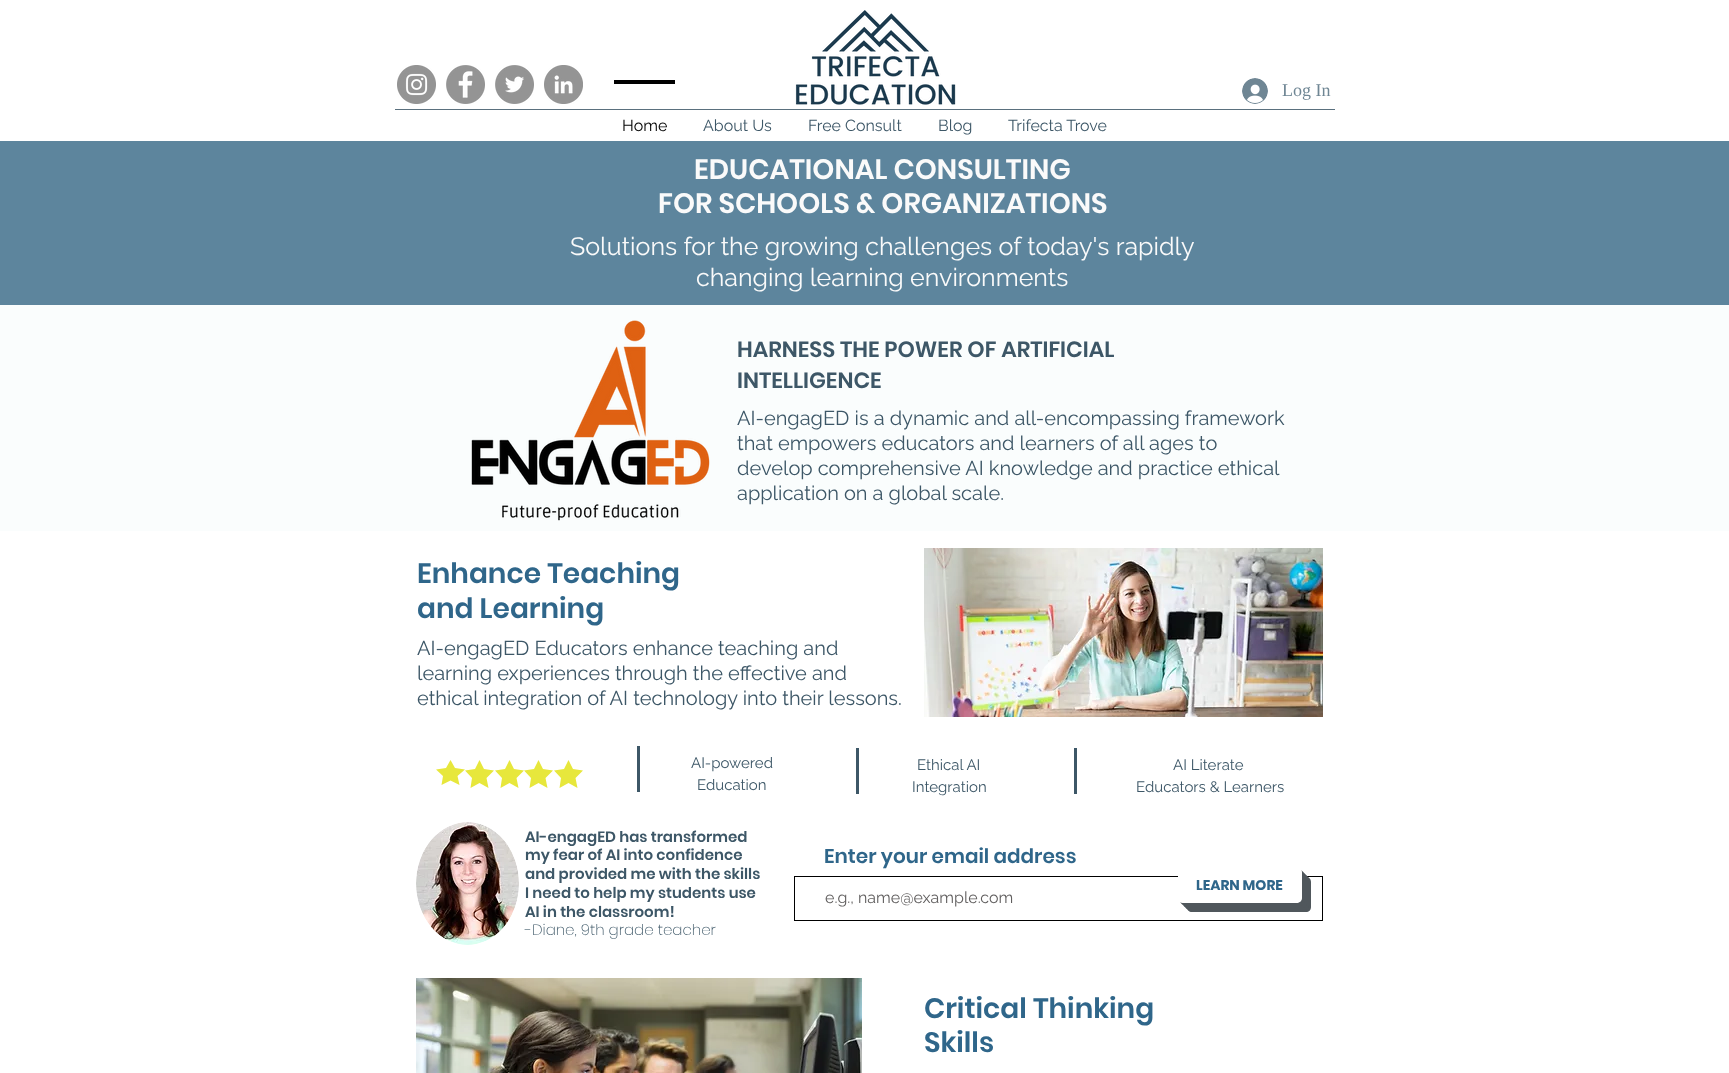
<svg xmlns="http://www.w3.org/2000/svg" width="1729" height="1073">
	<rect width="100%" height="100%" fill="#FAFDFD" />
	<rect x="0" y="0" width="1729" height="141" fill="#FFFFFF" />
	<image x="397" y="65" width="39" height="39" href="assets/img1.png" />
	<image x="446" y="65" width="39" height="39" href="assets/img2.png" />
	<image x="495" y="65" width="39" height="39" href="assets/img3.png" />
	<image x="544" y="65" width="39" height="39" href="assets/img4.png" />
	<image x="795" y="10" width="161" height="95" href="assets/img5.png" />
	<image x="1242" y="78" width="26" height="26" href="assets/img6.png" />
	<text x="1282" y="96" font-family="Liberation Serif" font-size="18" fill="#6F8694">Log In</text>
	<rect x="395" y="109" width="940" height="1" fill="#5A707E" />
	<rect x="614" y="80" width="61" height="4" fill="#000000" />
	<text x="622" y="131" font-family="Raleway" font-size="16" fill="#000000">Home</text>
	<g font-family="Raleway" font-size="16" fill="#3D5767">
		<text x="703" y="131">About Us</text>
		<text x="808" y="131">Free Consult</text>
		<text x="938" y="131">Blog</text>
		<text x="1008" y="131">Trifecta Trove</text>
	</g>
	<rect x="0" y="141" width="1729" height="164" fill="#5D859D" />
	<g font-family="Poppins" font-size="28" font-weight="600" fill="#FAFAFA">
		<text x="694" y="179">EDUCATIONAL CONSULTING</text>
		<text x="658" y="213">FOR SCHOOLS &amp; ORGANIZATIONS</text>
	</g>
	<g font-family="Raleway" font-size="25" fill="#FAFAFA">
		<text x="570" y="255">Solutions for the growing challenges of today's rapidly</text>
		<text x="696" y="286">changing learning environments</text>
	</g>
	<image x="471" y="320" width="239" height="201" href="assets/img7.png" />
	<g font-family="Poppins" font-size="22" font-weight="600" fill="#3D5767">
		<text x="737" y="357">HARNESS THE POWER OF ARTIFICIAL</text>
		<text x="737" y="388">INTELLIGENCE</text>
	</g>
	<g font-family="Raleway" font-size="20" fill="#3D5767">
		<text x="737" y="425">AI-engagED is a dynamic and all-encompassing framework</text>
		<text x="737" y="450">that empowers educators and learners of all ages to</text>
		<text x="737" y="475">develop comprehensive AI knowledge and practice ethical</text>
		<text x="737" y="500">application on a global scale.</text>
	</g>
	<rect x="0" y="531" width="1729" height="542" fill="#FFFFFF" />
	<g font-family="Poppins" font-size="28" font-weight="600" fill="#2F668A">
		<text x="417" y="583">Enhance Teaching</text>
		<text x="417" y="618">and Learning</text>
	</g>
	<image x="924" y="548" width="399" height="169" href="assets/img8.png" />
	<g font-family="Raleway" font-size="20" fill="#3D5767">
		<text x="417" y="655">AI-engagED Educators enhance teaching and</text>
		<text x="417" y="680">learning experiences through the effective and</text>
		<text x="417" y="705">ethical integration of AI technology into their lessons.</text>
	</g>
	<path d="M450.5 760L455 768L465 769.5L457.5 776L459.5 785L450.5 780.5L441.5 785L443 776L436 769.5L446 768ZM479.5 760L484 769L494 770.5L486.5 778L488.5 788L479.5 783L470.5 788L472 778L465 770.5L475 769Z" fill="#E7E73C" />
	<path d="M509.5 760L514 769L524 770.5L516.5 778L518.5 788L509.5 783L500.5 788L502 778L495 770.5L505 769ZM538.5 760L543 769L553 770.5L545.5 778L547.5 788L538.5 783L529.5 788L531 778L524 770.5L534 769Z" fill="#E7E73C" />
	<path d="M568.5 760L573 769L583 770.5L575.5 778L577.5 788L568.5 783L559.5 788L561 778L554 770.5L564 769Z" fill="#E7E73C" />
	<rect x="637" y="746" width="3" height="46" fill="#3D5767" />
	<g font-family="Raleway" font-size="15" fill="#3D5767">
		<text x="691" y="768">AI-powered</text>
		<text x="697" y="790">Education</text>
	</g>
	<rect x="856" y="748" width="3" height="46" fill="#3D5767" />
	<g font-family="Raleway" font-size="15" fill="#3D5767">
		<text x="917" y="770">Ethical AI</text>
		<text x="912" y="792">Integration</text>
	</g>
	<rect x="1074" y="748" width="3" height="46" fill="#3D5767" />
	<g font-family="Raleway" font-size="15" fill="#3D5767">
		<text x="1173" y="770">AI Literate</text>
		<text x="1136" y="792">Educators &amp; Learners</text>
	</g>
	<image x="416" y="822" width="103" height="123" href="assets/img9.png" />
	<g font-family="Poppins" font-size="15" font-weight="600" fill="#3D5767">
		<text x="525" y="842">AI-engagED has transformed</text>
		<text x="525" y="860">my fear of AI into confidence</text>
		<text x="525" y="879">and provided me with the skills</text>
		<text x="525" y="898">I need to help my students use</text>
		<text x="525" y="917">AI in the classroom!</text>
	</g>
	<text x="525" y="935" font-family="Poppins" font-size="15" font-weight="200" fill="#3D5767">-Diane, 9th grade teacher</text>
	<text x="824" y="863" font-family="Poppins" font-size="20" font-weight="600" fill="#2F668A">Enter your email address</text>
	<rect x="794.5" y="876.5" width="528" height="44" fill="none" stroke="#000000" />
	<text x="825" y="903" font-family="Raleway" font-size="16" fill="#605E5E">e.g., name@example.com</text>
	<path d="M1187 903V907C1187 910 1189 912 1192 912H1306C1309 912 1311 910 1311 907V882C1311 879 1309 877 1306 877H1302V898C1302 901 1300 903 1297 903Z" fill="#50575C" />
	<path d="M1185 903V905C1185 908 1187 910 1190 910H1304C1307 910 1309 908 1309 905V880C1309 877 1307 875 1304 875H1302V898C1302 901 1300 903 1297 903Z" fill="#50575C" />
	<path d="M1183 903C1183 906 1185 908 1188 908H1302C1305 908 1307 906 1307 903V878C1307 875 1305 873 1302 873V898C1302 901 1300 903 1297 903Z" fill="#50575C" />
	<path d="M1181 903C1182 905 1184 906 1186 906H1300C1303 906 1305 904 1305 901V876C1305 874 1304 872 1302 871V899C1300 906 1285 903 1278 903Z" fill="#50575C" />
	<path d="M1180 902C1181 903 1182 904 1184 904H1298C1301 904 1303 902 1303 899V874C1303 872 1302 871 1301 870C1303 873 1302 882 1302 886C1302 907 1303 903 1278 903H1183Z" fill="#50575C" />
	<rect x="1178" y="868" width="124" height="35" rx="5" fill="#FFFFFF" />
	<text x="1196" y="890" font-family="Poppins" font-size="14" font-weight="700" fill="#2F668A">LEARN MORE</text>
	<image x="416" y="978" width="446" height="95" href="assets/img10.png" />
	<g font-family="Poppins" font-size="28" font-weight="600" fill="#2F668A">
		<text x="924" y="1018">Critical Thinking</text>
		<text x="924" y="1052">Skills</text>
	</g>
</svg>
